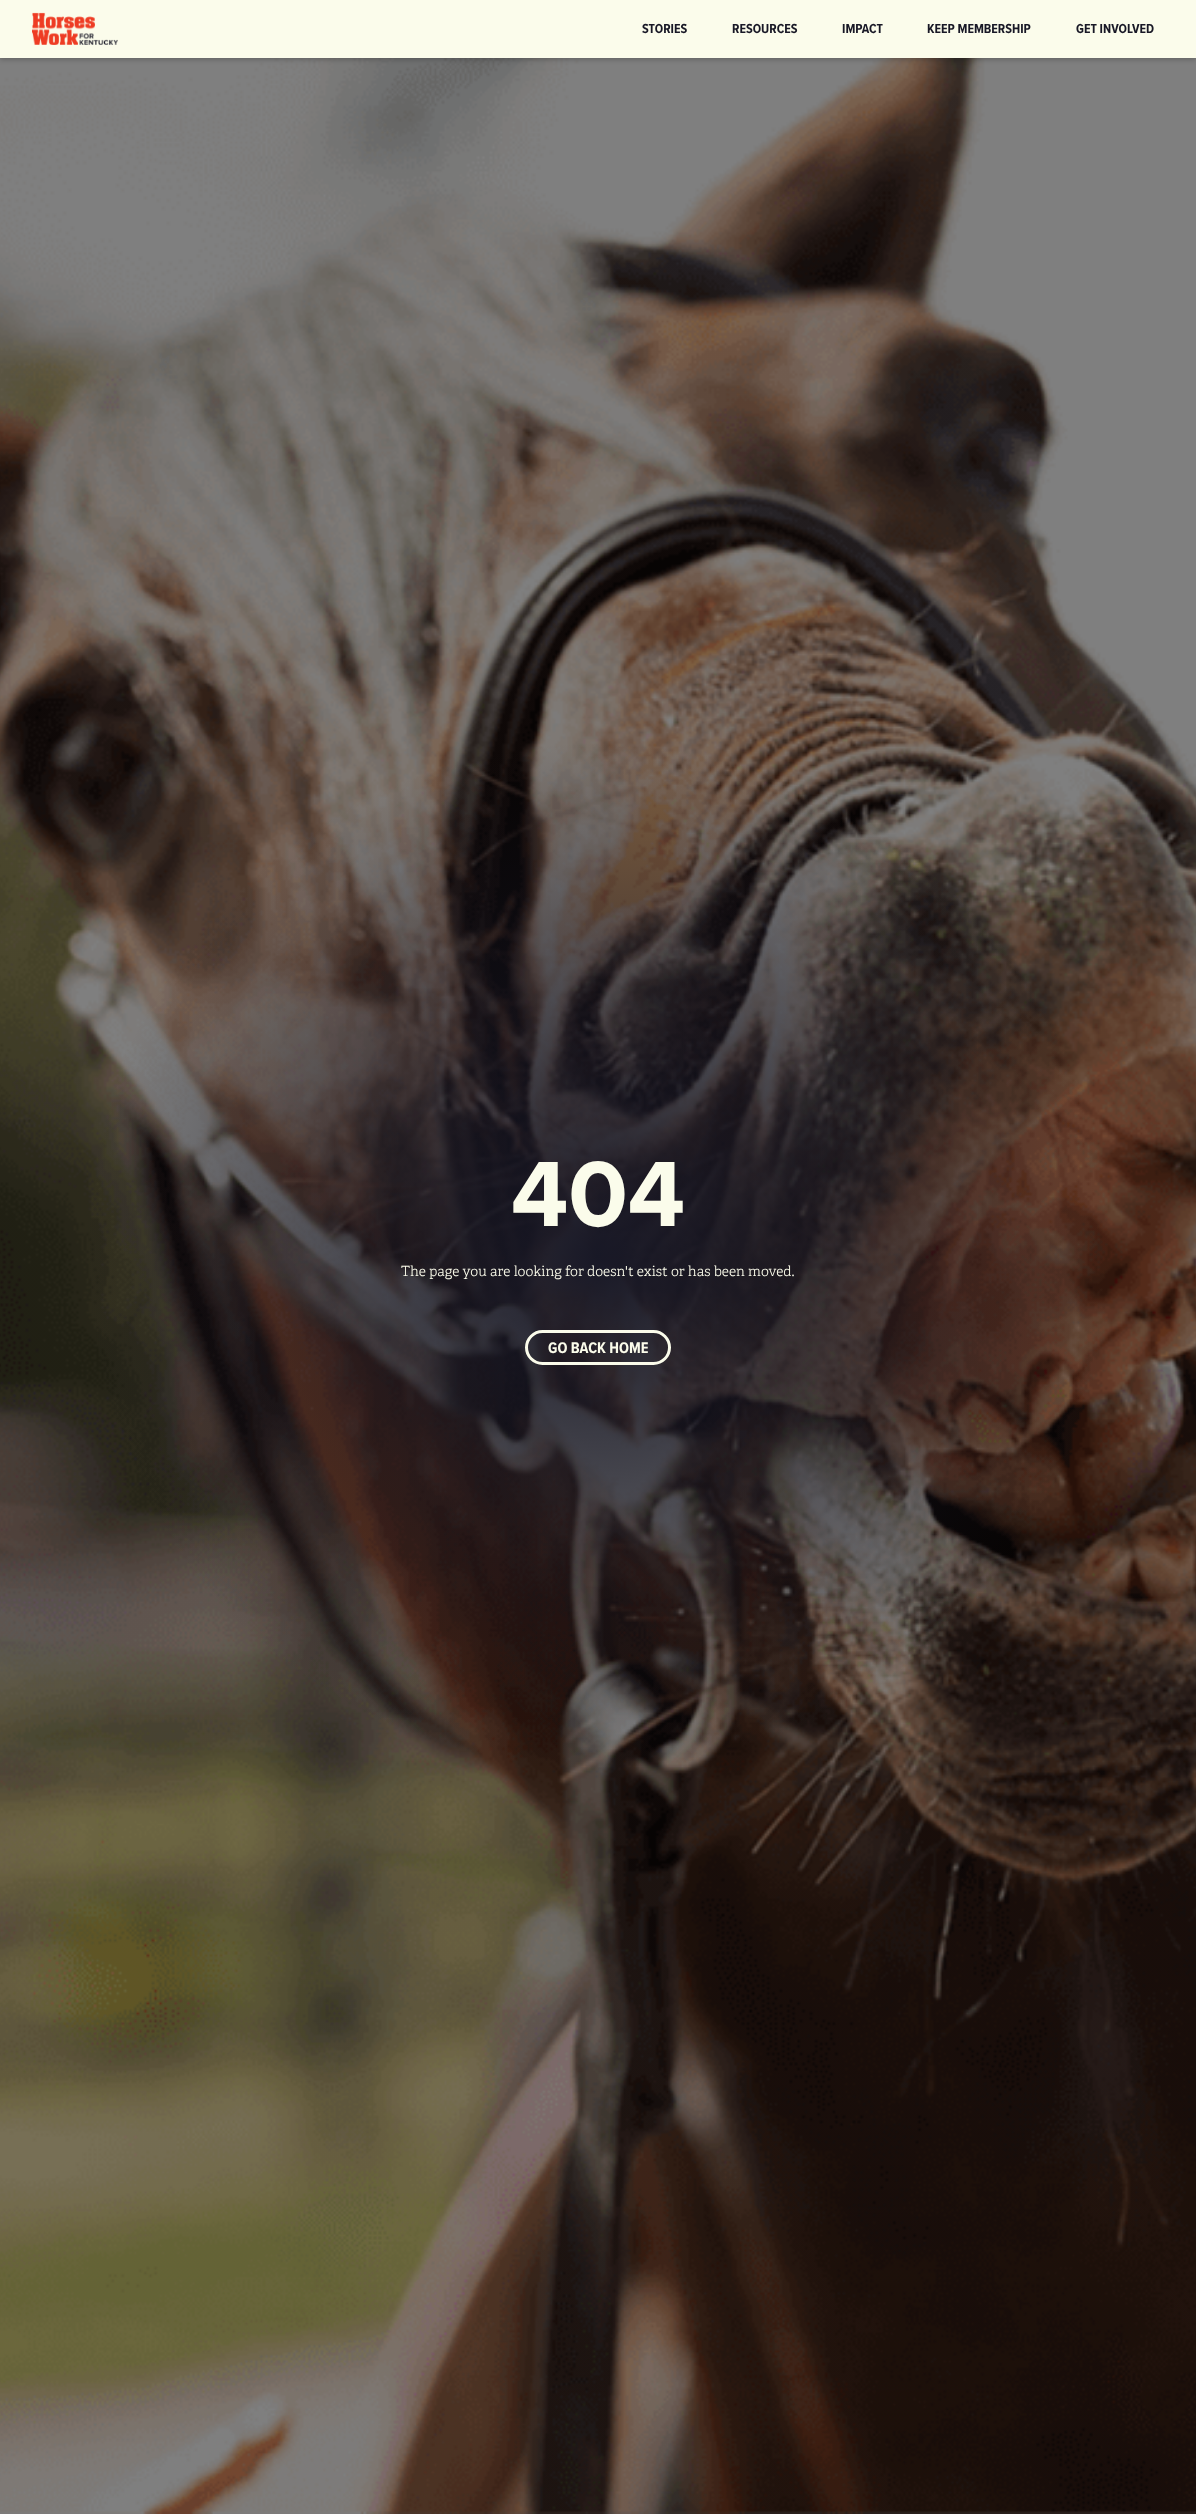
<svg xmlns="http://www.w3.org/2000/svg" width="1196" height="2514">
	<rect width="100%" height="100%" fill="#FFFFFF" />
	<image x="0" y="58" width="1196" height="2456" href="assets/img2.png" />
	<rect x="0" y="2" width="1196" height="58" fill="#000000" fill-opacity="0.2" filter="blur(2.5px)" />
	<rect x="0" y="0" width="1196" height="58" fill="#FBFCEB" />
	<image x="32" y="12" width="86" height="33" href="assets/img1.png" />
	<g font-family="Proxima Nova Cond" font-size="13.5" font-weight="700" fill="#181826">
		<text x="642" y="33">STORIES</text>
		<text x="732" y="33">RESOURCES</text>
		<text x="842" y="33">IMPACT</text>
		<text x="927" y="33">KEEP MEMBERSHIP</text>
		<text x="1076" y="33">GET INVOLVED</text>
	</g>
	<text x="511" y="1226" font-family="Proxima Nova" font-size="96" font-weight="700" fill="#FBFCEB">404</text>
	<text x="401" y="1276" font-family="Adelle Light" font-size="14" font-weight="300" fill="#FBFCEB">The page you are looking for doesn't exist or has been moved.</text>
	<rect x="526.5" y="1331.5" width="143" height="32" rx="16" fill="none" stroke="#FBFCEB" stroke-width="3" />
	<text x="548" y="1353" font-family="Proxima Nova Cond" font-size="16" font-weight="700" fill="#FBFCEB">GO BACK HOME</text>
</svg>
